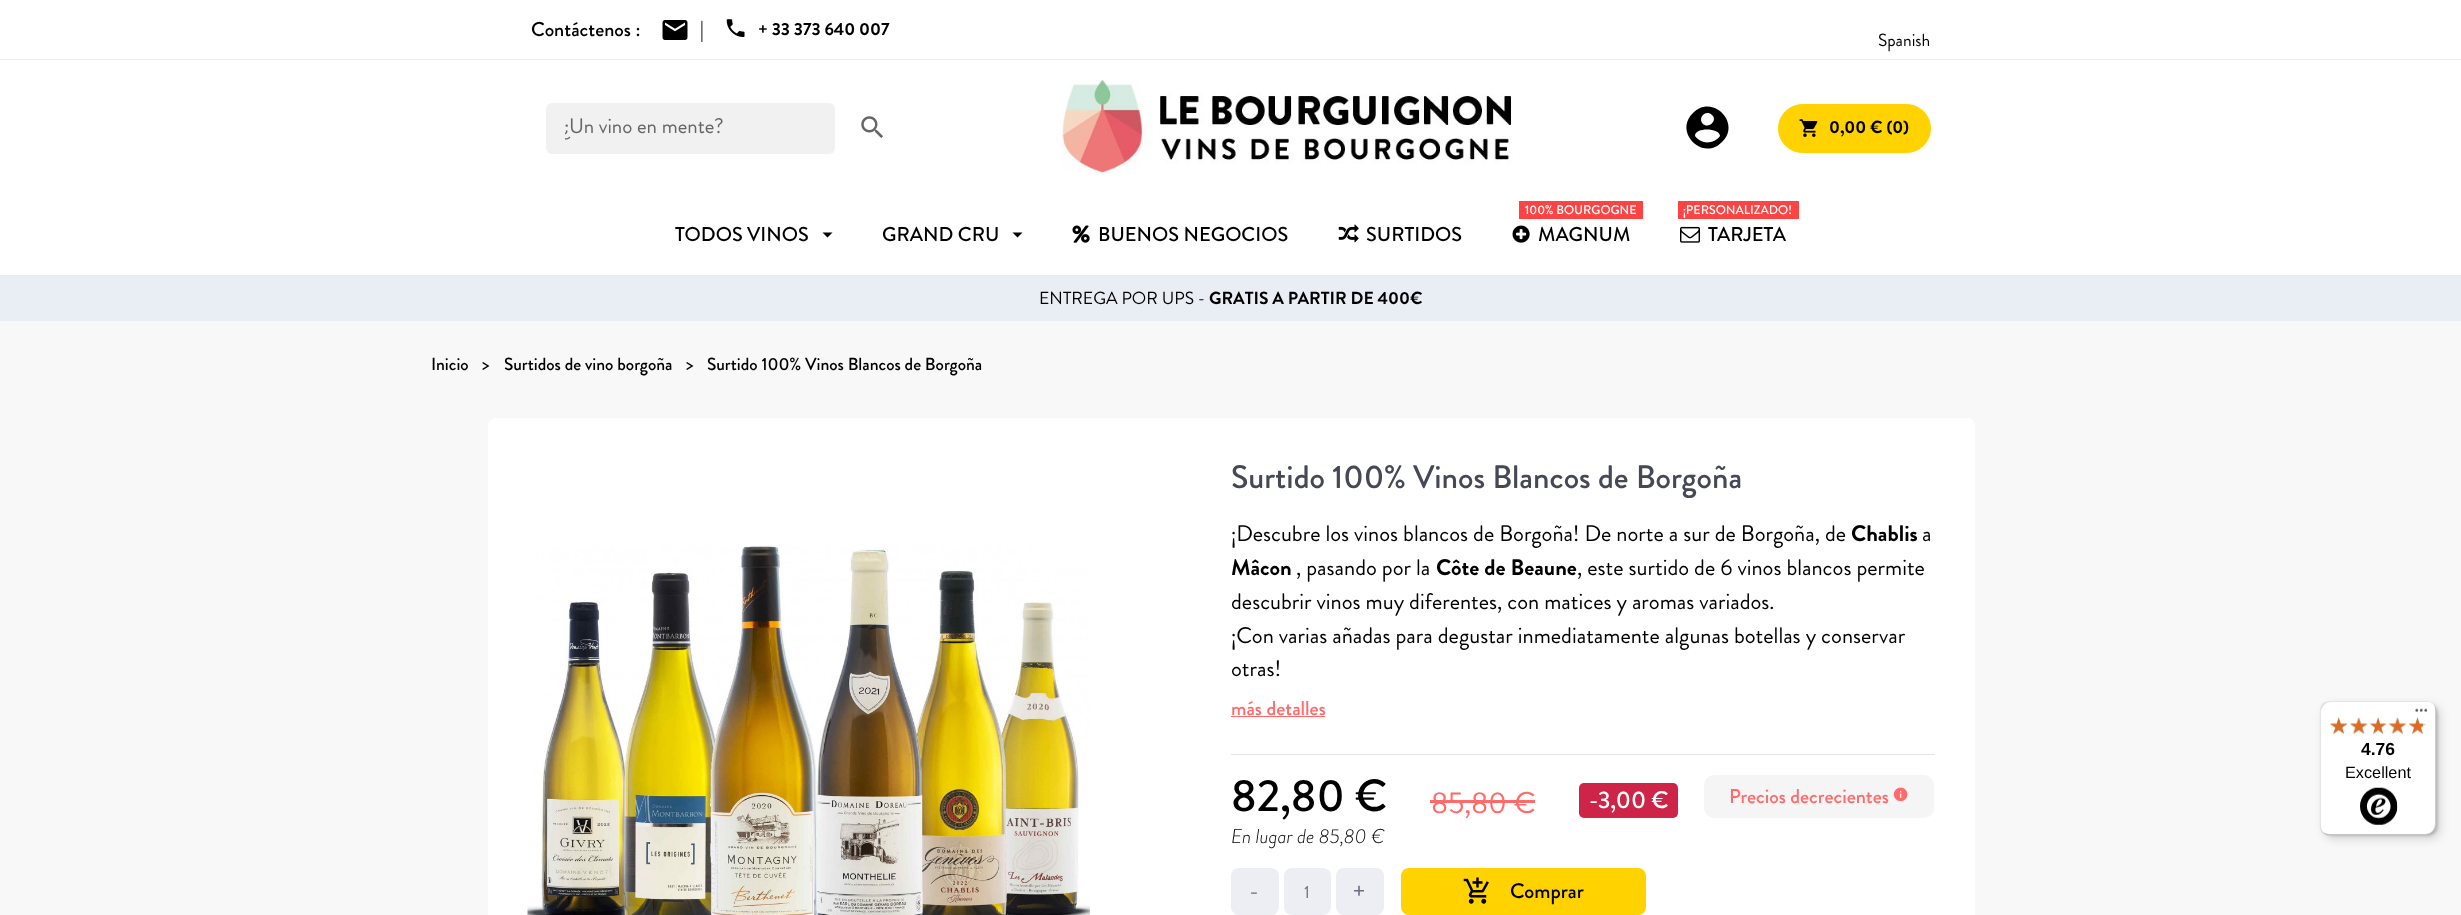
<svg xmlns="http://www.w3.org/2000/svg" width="2461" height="915">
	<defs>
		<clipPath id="clip1"><rect x="565" y="111" width="253" height="32" /></clipPath>
	</defs>
	<rect width="100%" height="100%" fill="#FFFFFF" />
	<rect x="0" y="59" width="2461" height="1" fill="#EDEEF4" />
	<text x="531" y="36" font-family="Brandon Grotesque" font-size="20" font-weight="500" fill="#000000">Contáctenos :</text>
	<image x="662" y="20" width="26" height="20" href="assets/img1.png" />
	<text x="700" y="36" font-family="Brandon Grotesque" font-size="20" font-weight="500" fill="#000000">|</text>
	<image x="726" y="19" width="19" height="18" href="assets/img2.png" />
	<text x="758" y="35" font-family="Brandon Grotesque" font-size="17.5" font-weight="700" fill="#000000">+ 33 373 640 007</text>
	<text x="1878" y="46" font-family="Brandon Grotesque" font-size="17.5" fill="#000000">Spanish</text>
	<rect x="546" y="103" width="289" height="51" rx="6" fill="#F1F1F1" />
	<g clip-path="url(#clip1)">
		<text x="564" y="133" font-family="Brandon Grotesque" font-size="21" fill="#666666">¿Un vino en mente?</text>
	</g>
	<image x="861" y="116" width="22" height="22" href="assets/img3.png" />
	<image x="1062" y="80" width="451" height="95" href="assets/img4.png" />
	<path d="M1701 141C1707 144 1716 142 1720 136C1720 128 1695 127 1695 136C1696 138 1698 139 1701 141ZM1712 115C1706 109 1697 118 1703 124C1709 129 1718 120 1712 115ZM1693 113C1712 93 1742 123 1722 142C1703 162 1673 132 1693 113Z" fill="#000000" />
	<rect x="1778.5" y="104.5" width="152" height="48" rx="24" fill="#FFD200" stroke="#FFD200" />
	<image x="1799" y="119" width="19" height="18" href="assets/img5.png" />
	<text x="1829" y="133" font-family="Brandon Grotesque" font-size="17.5" font-weight="700" fill="#000000">0,00 € (0)</text>
	<text x="675" y="241" font-family="Brandon Grotesque" font-size="20" font-weight="500" fill="#000000">TODOS VINOS</text>
	<path d="M822.5 232.5H832.5L827.5 237.5Z" fill="#000000" />
	<text x="882" y="241" font-family="Brandon Grotesque" font-size="20" font-weight="500" fill="#000000">GRAND CRU</text>
	<path d="M1012.5 232.5H1022.5L1017.5 237.5Z" fill="#000000" />
	<image x="1072" y="225" width="18" height="18" href="assets/img6.png" />
	<text x="1098" y="241" font-family="Brandon Grotesque" font-size="20" font-weight="500" fill="#000000">BUENOS NEGOCIOS</text>
	<image x="1338" y="224" width="21" height="19" href="assets/img7.png" />
	<text x="1366" y="241" font-family="Brandon Grotesque" font-size="20" font-weight="500" fill="#000000">SURTIDOS</text>
	<rect x="1519" y="201" width="124" height="18" fill="#FC4444" />
	<text x="1525" y="214" font-family="Brandon Grotesque" font-size="12.5" font-weight="500" fill="#FFFFFF">100% BOURGOGNE</text>
	<image x="1512" y="225" width="18" height="18" href="assets/img8.png" />
	<text x="1538" y="241" font-family="Brandon Grotesque" font-size="20" font-weight="500" fill="#000000">MAGNUM</text>
	<rect x="1678" y="201" width="121" height="18" fill="#FC4444" />
	<text x="1683" y="214" font-family="Brandon Grotesque" font-size="12.5" font-weight="500" fill="#FFFFFF">¡PERSONALIZADO!</text>
	<image x="1680" y="226" width="20" height="17" href="assets/img9.png" />
	<text x="1708" y="241" font-family="Brandon Grotesque" font-size="20" font-weight="500" fill="#000000">TARJETA</text>
	<rect x="0" y="275" width="2461" height="46" fill="#E9EEF4" />
	<text x="1039" y="304" font-family="Brandon Grotesque" font-size="17.5" fill="#000000">ENTREGA POR UPS -</text>
	<text x="1209" y="304" font-family="Brandon Grotesque" font-size="17.5" font-weight="700" fill="#000000">GRATIS A PARTIR DE 400€</text>
	<rect x="0" y="321" width="2461" height="594" fill="#F8F8F8" />
	<g font-family="Brandon Grotesque" font-size="17.5" font-weight="500" fill="#000000">
		<text x="431" y="370">Inicio</text>
		<text x="482" y="370">&gt;</text>
		<text x="504" y="370">Surtidos de vino borgoña</text>
		<text x="686" y="370">&gt;</text>
		<text x="707" y="370">Surtido 100% Vinos Blancos de Borgoña</text>
	</g>
	<rect x="488" y="418" width="1487" height="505" rx="8" fill="#FFFFFF" />
	<image x="527" y="545" width="563" height="370" href="assets/img10.png" />
	<text x="1231" y="488" font-family="Brandon Grotesque" font-size="32.5" font-weight="500" fill="#464855">Surtido 100% Vinos Blancos de Borgoña</text>
	<text x="1231" y="541" font-family="Brandon Grotesque" font-size="22.5" fill="#000000">¡Descubre los vinos blancos de Borgoña! De norte a sur de Borgoña, de</text>
	<text x="1851" y="541" font-family="Brandon Grotesque" font-size="22.5" font-weight="700" fill="#000000">Chablis</text>
	<text x="1922" y="541" font-family="Brandon Grotesque" font-size="22.5" fill="#000000">a</text>
	<text x="1231" y="575" font-family="Brandon Grotesque" font-size="22.5" font-weight="700" fill="#000000">Mâcon</text>
	<text x="1296" y="575" font-family="Brandon Grotesque" font-size="22.5" fill="#000000">, pasando por la</text>
	<text x="1436" y="575" font-family="Brandon Grotesque" font-size="22.5" font-weight="700" fill="#000000">Côte de Beaune</text>
	<g font-family="Brandon Grotesque" font-size="22.5" fill="#000000">
		<text x="1577" y="575">, este surtido de 6 vinos blancos permite</text>
		<text x="1231" y="609">descubrir vinos muy diferentes, con matices y aromas variados.</text>
		<text x="1231" y="643">¡Con varias añadas para degustar inmediatamente algunas botellas y conservar</text>
		<text x="1231" y="676">otras!</text>
	</g>
	<text x="1231" y="715" font-family="Brandon Grotesque" font-size="20" font-weight="500" fill="#FF6B6B">más detalles</text>
	<rect x="1231" y="716" width="94" height="1" fill="#FF6B6B" />
	<rect x="1231" y="754" width="704" height="1" fill="#E4E5EC" />
	<text x="1231" y="811" font-family="Brandon Grotesque" font-size="45" font-weight="500" fill="#000000">82,80 €</text>
	<text x="1431" y="813" font-family="Brandon Grotesque" font-size="30" fill="#FF6B6B">85,80 €</text>
	<rect x="1430" y="800" width="105" height="3" fill="#FF6B6B" />
	<rect x="1579" y="783" width="99" height="35" rx="5" fill="#CE2448" />
	<text x="1589" y="808" font-family="Brandon Grotesque" font-size="24" font-weight="500" fill="#FFFFFF">-3,00 €</text>
	<rect x="1704" y="775" width="230" height="43" rx="10" fill="#F5F5F5" />
	<text x="1729" y="803" font-family="Brandon Grotesque" font-size="20" font-weight="500" fill="#FF6B6B">Precios decrecientes</text>
	<image x="1893" y="787" width="15" height="15" href="assets/img11.png" />
	<text x="1231" y="843" font-family="Brandon Grotesque" font-size="20" font-weight="300" font-style="italic" fill="#000000">En lugar de 85,80 €</text>
	<rect x="1231" y="868" width="48" height="47" rx="8" fill="#EDEEF4" />
	<text x="1249" y="899" font-family="Brandon Grotesque" font-size="24" fill="#6B6F81">-</text>
	<rect x="1284" y="868" width="47" height="47" rx="8" fill="#EDEEF4" />
	<text x="1304" y="898" font-family="Brandon Grotesque" font-size="17.5" fill="#6B6F81">1</text>
	<rect x="1336" y="868" width="48" height="47" rx="8" fill="#EDEEF4" />
	<text x="1353" y="899" font-family="Brandon Grotesque" font-size="24" fill="#6B6F81">+</text>
	<rect x="1401" y="868" width="245" height="47" rx="8" fill="#FFD200" />
	<image x="1463" y="877" width="26" height="27" href="assets/img12.png" />
	<text x="1510" y="898" font-family="Brandon Grotesque" font-size="21" font-weight="500" fill="#000000">Comprar</text>
	<rect x="2324" y="705" width="116" height="134" rx="10" fill="#000000" fill-opacity="0.15" filter="blur(5px)" />
	<rect x="2321" y="703" width="117" height="133" rx="10" fill="#000000" fill-opacity="0.15" filter="blur(1px)" />
	<rect x="2320" y="701" width="116" height="134" rx="10" fill="#FFFFFF" />
	<path d="M2331 702H2428C2429 702 2431 702 2432 703C2430 702 2428 701 2426 701H2330C2324 701 2320 705 2320 711V825C2320 828 2321 831 2323 833C2322 831 2321 829 2321 826V712C2321 707 2326 702 2331 702Z" fill="#000000" fill-opacity="0.1" />
	<path d="M2322 832C2324 834 2327 835 2330 835H2426C2432 835 2436 831 2436 825V711C2436 709 2435 706 2434 705C2435 706 2435 708 2435 710V824C2435 829 2431 834 2425 834H2329C2326 834 2324 833 2322 832Z" fill="#000000" fill-opacity="0.2" />
	<image x="2415" y="708" width="13" height="4" href="assets/img13.png" />
	<path d="M2322 831C2324 834 2327 835 2330 835H2426C2432 835 2436 831 2436 825V824C2436 830 2431 834 2426 834H2329C2327 834 2324 833 2322 831Z" fill="#323232" fill-opacity="0.2" />
	<path d="M2322 831C2324 834 2327 835 2330 835H2426C2432 835 2436 831 2436 825V824C2436 830 2431 834 2426 834H2329C2327 834 2324 833 2322 831Z" fill="#FFFFFF" fill-opacity="0.3" />
	<image x="2330" y="717" width="17" height="17" href="assets/img14.png" />
	<image x="2350" y="717" width="17" height="17" href="assets/img15.png" />
	<image x="2370" y="718" width="16" height="16" href="assets/img16.png" />
	<image x="2389" y="717" width="17" height="17" href="assets/img17.png" />
	<image x="2409" y="717" width="17" height="17" href="assets/img18.png" />
	<image x="2330" y="717" width="17" height="17" href="assets/img19.png" />
	<image x="2350" y="717" width="18" height="17" href="assets/img20.png" />
	<image x="2370" y="717" width="16" height="17" href="assets/img21.png" />
	<image x="2388" y="717" width="18" height="17" href="assets/img22.png" />
	<image x="2409" y="717" width="14" height="17" href="assets/img23.png" />
	<text x="2361" y="755" font-family="Liberation Sans" font-size="17.5" font-weight="700" fill="#000000">4.76</text>
	<text x="2345" y="778" font-family="Liberation Sans" font-size="16.25" fill="#000000">Excellent</text>
	<image x="2360" y="787" width="38" height="38" href="assets/img24.png" />
</svg>
